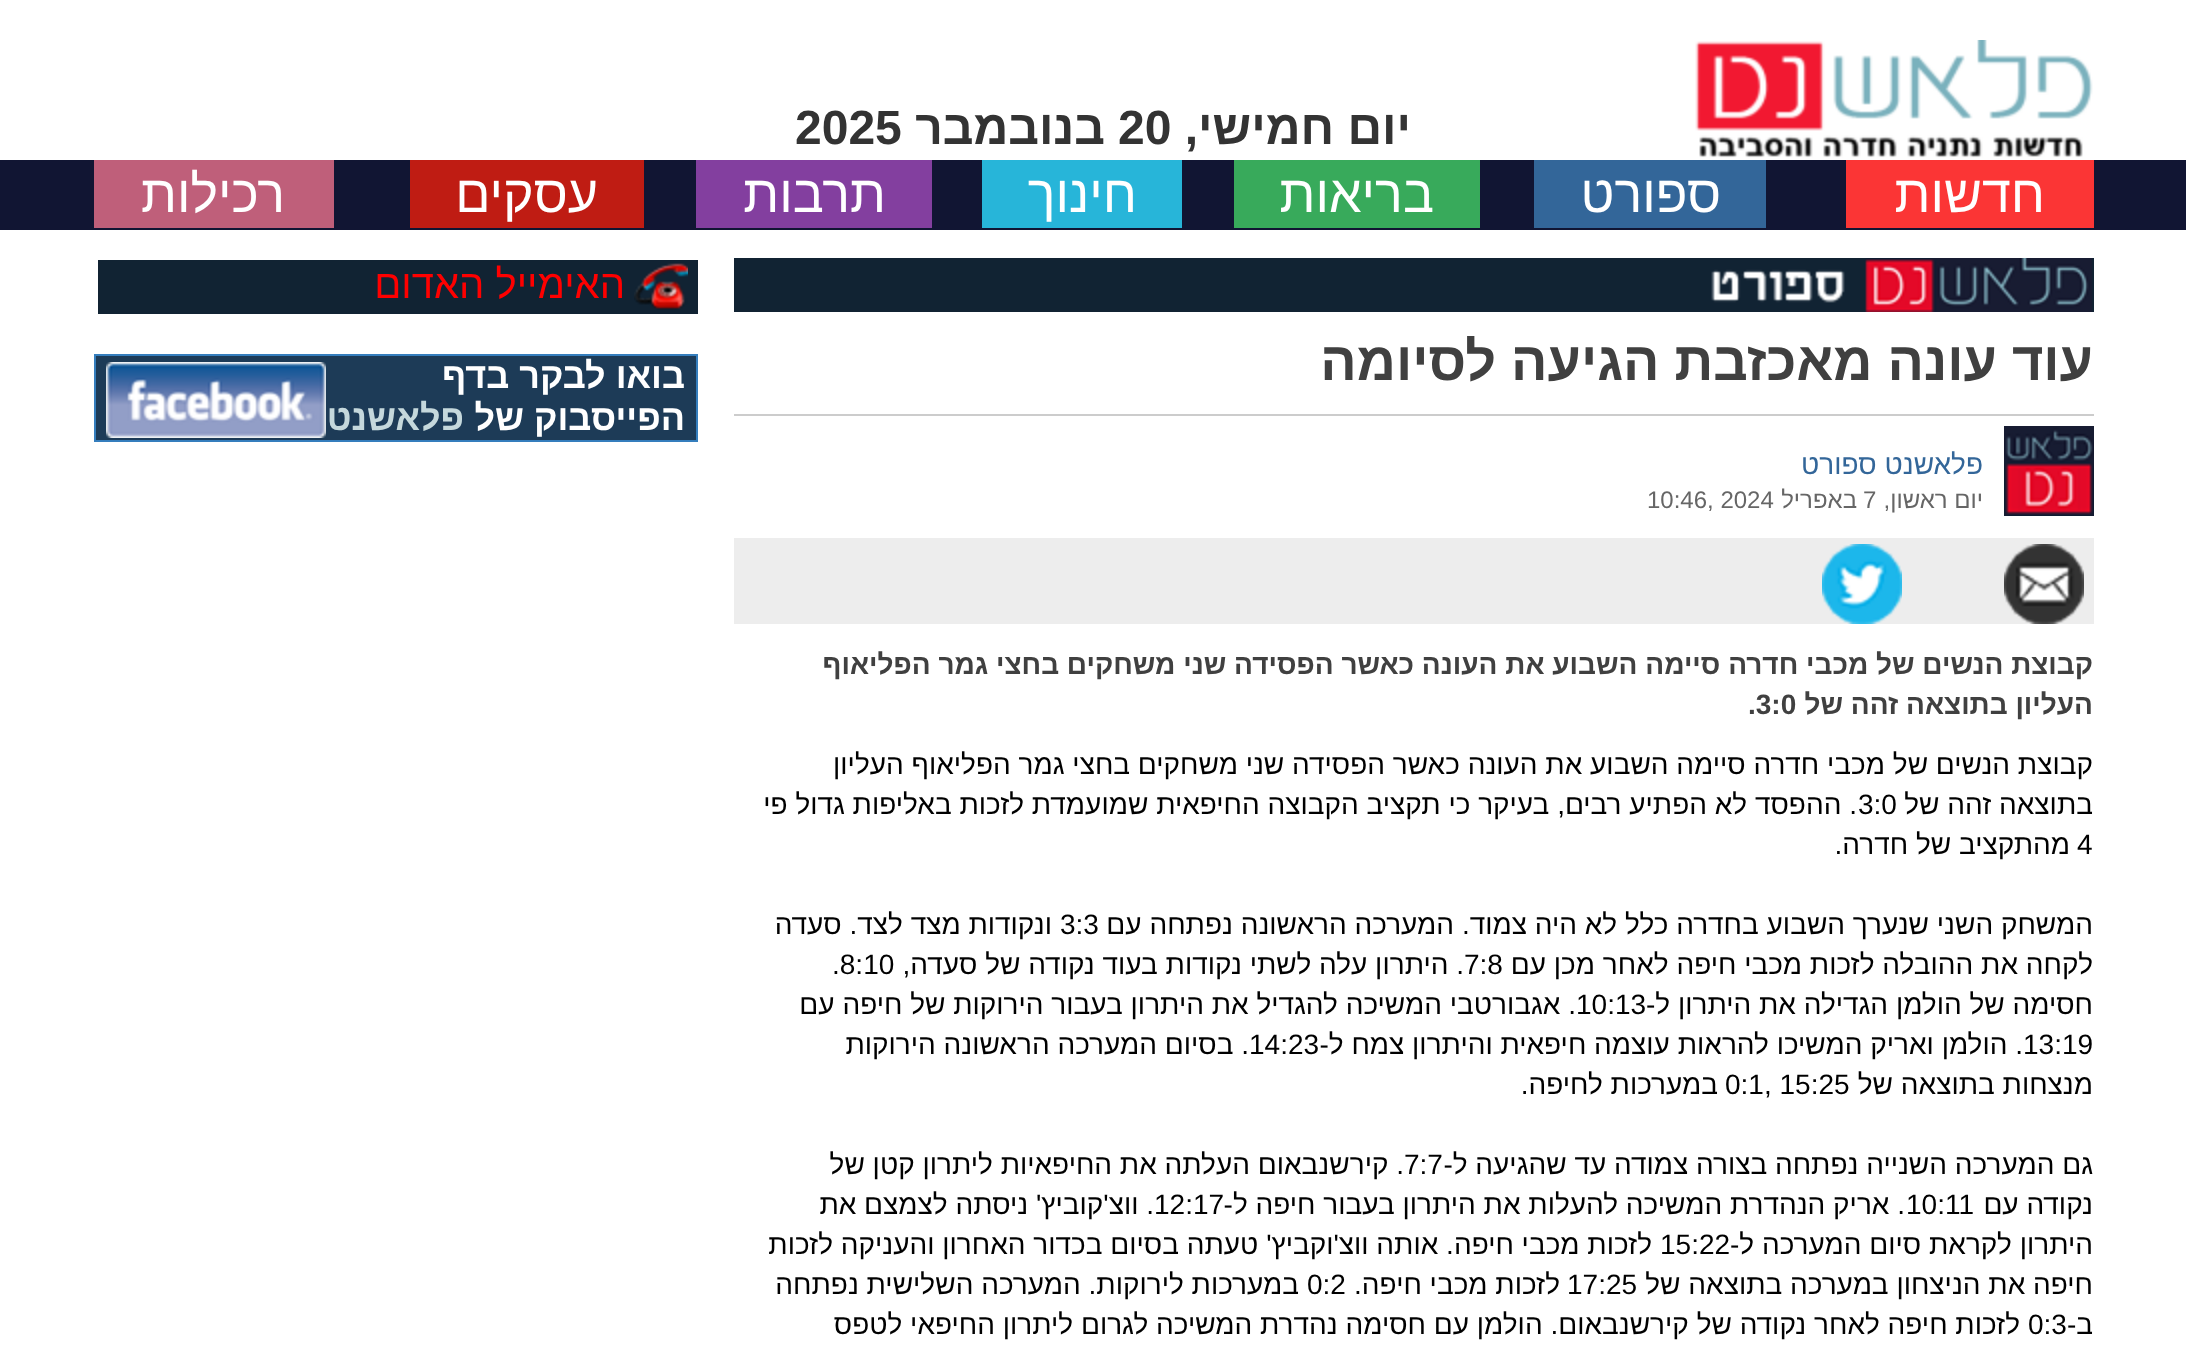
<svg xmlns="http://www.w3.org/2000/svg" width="2186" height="1350">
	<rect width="100%" height="100%" fill="#FFFFFF" />
	<image x="1695" y="40" width="398" height="118" href="assets/img1.png" />
	<text x="1411" y="144" font-family="Liberation Sans" font-size="48" font-weight="700" direction="rtl" fill="#333333">יום חמישי,</text>
	<text x="1118" y="144" font-family="Liberation Sans" font-size="48" font-weight="700" fill="#333333">20</text>
	<text x="1105" y="144" font-family="Liberation Sans" font-size="48" font-weight="700" direction="rtl" fill="#333333">בנובמבר</text>
	<text x="795" y="144" font-family="Liberation Sans" font-size="48" font-weight="700" fill="#333333">2025</text>
	<rect x="0" y="160" width="2186" height="70" fill="#111533" />
	<rect x="1846" y="160" width="248" height="68" fill="#FB3535" />
	<text x="2045" y="212" font-family="Liberation Sans" font-size="52" direction="rtl" fill="#FFFFFF">חדשות</text>
	<rect x="1534" y="160" width="232" height="68" fill="#336699" />
	<text x="1721" y="212" font-family="Liberation Sans" font-size="52" direction="rtl" fill="#FFFFFF">ספורט</text>
	<rect x="1234" y="160" width="246" height="68" fill="#38AA5B" />
	<text x="1434" y="212" font-family="Liberation Sans" font-size="52" direction="rtl" fill="#FFFFFF">בריאות</text>
	<rect x="982" y="160" width="200" height="68" fill="#27B5D9" />
	<text x="1137" y="212" font-family="Liberation Sans" font-size="52" direction="rtl" fill="#FFFFFF">חינוך</text>
	<rect x="696" y="160" width="236" height="68" fill="#833F9F" />
	<text x="886" y="212" font-family="Liberation Sans" font-size="52" direction="rtl" fill="#FFFFFF">תרבות</text>
	<rect x="410" y="160" width="234" height="68" fill="#BF1C13" />
	<text x="598" y="212" font-family="Liberation Sans" font-size="52" direction="rtl" fill="#FFFFFF">עסקים</text>
	<rect x="94" y="160" width="240" height="68" fill="#BF5F7A" />
	<text x="285" y="212" font-family="Liberation Sans" font-size="52" direction="rtl" fill="#FFFFFF">רכילות</text>
	<image x="734" y="258" width="1360" height="54" href="assets/img2.png" />
	<text x="2093" y="380" font-family="Liberation Sans" font-size="54" font-weight="700" direction="rtl" fill="#404040">עוד עונה מאכזבת הגיעה לסיומה</text>
	<rect x="734" y="414" width="1360" height="2" fill="#CCCCCC" />
	<image x="2004" y="426" width="90" height="90" href="assets/img3.png" />
	<text x="1983" y="474" font-family="Liberation Sans" font-size="28" direction="rtl" fill="#336699">פלאשנט ספורט</text>
	<text x="1983" y="508" font-family="Liberation Sans" font-size="24" direction="rtl" fill="#666666">יום ראשון,</text>
	<text x="1863" y="508" font-family="Liberation Sans" font-size="24" fill="#666666">7</text>
	<text x="1857" y="508" font-family="Liberation Sans" font-size="24" direction="rtl" fill="#666666">באפריל</text>
	<text x="1647" y="508" font-family="Liberation Sans" font-size="24" fill="#666666">10:46, 2024</text>
	<rect x="734" y="538" width="1360" height="86" fill="#EDEDED" />
	<image x="2004" y="544" width="80" height="80" href="assets/img4.png" />
	<image x="1822" y="544" width="80" height="80" href="assets/img5.png" />
	<g font-family="Liberation Sans" font-size="28" font-weight="700" direction="rtl" fill="#404040">
		<text x="2093" y="674">קבוצת הנשים של מכבי חדרה סיימה השבוע את העונה כאשר הפסידה שני משחקים בחצי גמר הפליאוף</text>
		<text x="2093" y="714">העליון בתוצאה זהה של</text>
	</g>
	<text x="1748" y="714" font-family="Liberation Sans" font-size="28" font-weight="700" fill="#404040">.3:0</text>
	<g font-family="Liberation Sans" font-size="28" direction="rtl" fill="#000000">
		<text x="2093" y="774">קבוצת הנשים של מכבי חדרה סיימה השבוע את העונה כאשר הפסידה שני משחקים בחצי גמר הפליאוף העליון</text>
		<text x="2093" y="814">בתוצאה זהה של</text>
	</g>
	<text x="1858" y="814" font-family="Liberation Sans" font-size="28" fill="#000000">3:0</text>
	<text x="1857" y="814" font-family="Liberation Sans" font-size="28" direction="rtl" fill="#000000">. ההפסד לא הפתיע רבים, בעיקר כי תקציב הקבוצה החיפאית שמועמדת לזכות באליפות גדול פי</text>
	<text x="2077" y="854" font-family="Liberation Sans" font-size="28" fill="#000000">4</text>
	<g font-family="Liberation Sans" font-size="28" direction="rtl" fill="#000000">
		<text x="2070" y="854">מהתקציב של חדרה.</text>
		<text x="2093" y="934">המשחק השני שנערך השבוע בחדרה כלל לא היה צמוד. המערכה הראשונה נפתחה עם</text>
	</g>
	<text x="1060" y="934" font-family="Liberation Sans" font-size="28" fill="#000000">3:3</text>
	<g font-family="Liberation Sans" font-size="28" direction="rtl" fill="#000000">
		<text x="1052" y="934">ונקודות מצד לצד. סעדה</text>
		<text x="2093" y="974">לקחה את ההובלה לזכות מכבי חיפה לאחר מכן עם</text>
	</g>
	<text x="1464" y="974" font-family="Liberation Sans" font-size="28" fill="#000000">7:8</text>
	<text x="1464" y="974" font-family="Liberation Sans" font-size="28" direction="rtl" fill="#000000">. היתרון עלה לשתי נקודות בעוד נקודה של סעדה,</text>
	<text x="832" y="974" font-family="Liberation Sans" font-size="28" fill="#000000">.8:10</text>
	<text x="2093" y="1014" font-family="Liberation Sans" font-size="28" direction="rtl" fill="#000000">חסימה של הולמן הגדילה את היתרון ל-</text>
	<text x="1576" y="1014" font-family="Liberation Sans" font-size="28" fill="#000000">10:13</text>
	<text x="1576" y="1014" font-family="Liberation Sans" font-size="28" direction="rtl" fill="#000000">. אגבורטבי המשיכה להגדיל את היתרון בעבור הירוקות של חיפה עם</text>
	<text x="2023" y="1054" font-family="Liberation Sans" font-size="28" fill="#000000">13:19</text>
	<text x="2023" y="1054" font-family="Liberation Sans" font-size="28" direction="rtl" fill="#000000">. הולמן ואריק המשיכו להראות עוצמה חיפאית והיתרון צמח ל-</text>
	<text x="1249" y="1054" font-family="Liberation Sans" font-size="28" fill="#000000">14:23</text>
	<g font-family="Liberation Sans" font-size="28" direction="rtl" fill="#000000">
		<text x="1249" y="1054">. בסיום המערכה הראשונה הירוקות</text>
		<text x="2093" y="1094">מנצחות בתוצאה של</text>
	</g>
	<text x="1725" y="1094" font-family="Liberation Sans" font-size="28" fill="#000000">0:1, 15:25</text>
	<g font-family="Liberation Sans" font-size="28" direction="rtl" fill="#000000">
		<text x="1718" y="1094">במערכות לחיפה.</text>
		<text x="2093" y="1174">גם המערכה השנייה נפתחה בצורה צמודה עד שהגיעה ל-</text>
	</g>
	<text x="1404" y="1174" font-family="Liberation Sans" font-size="28" fill="#000000">7:7</text>
	<g font-family="Liberation Sans" font-size="28" direction="rtl" fill="#000000">
		<text x="1404" y="1174">. קירשנבאום העלתה את החיפאיות ליתרון קטן של</text>
		<text x="2093" y="1214">נקודה עם</text>
	</g>
	<text x="1906" y="1214" font-family="Liberation Sans" font-size="28" fill="#000000">10:11</text>
	<text x="1905" y="1214" font-family="Liberation Sans" font-size="28" direction="rtl" fill="#000000">. אריק הנהדרת המשיכה להעלות את היתרון בעבור חיפה ל-</text>
	<text x="1154" y="1214" font-family="Liberation Sans" font-size="28" fill="#000000">12:17</text>
	<g font-family="Liberation Sans" font-size="28" direction="rtl" fill="#000000">
		<text x="1154" y="1214">. ווצ'קוביץ' ניסתה לצמצם את</text>
		<text x="2093" y="1254">היתרון לקראת סיום המערכה ל-</text>
	</g>
	<text x="1660" y="1254" font-family="Liberation Sans" font-size="28" fill="#000000">15:22</text>
	<g font-family="Liberation Sans" font-size="28" direction="rtl" fill="#000000">
		<text x="1652" y="1254">לזכות מכבי חיפה. אותה ווצ'וקביץ' טעתה בסיום בכדור האחרון והעניקה לזכות</text>
		<text x="2093" y="1294">חיפה את הניצחון במערכה בתוצאה של</text>
	</g>
	<text x="1567" y="1294" font-family="Liberation Sans" font-size="28" fill="#000000">17:25</text>
	<text x="1560" y="1294" font-family="Liberation Sans" font-size="28" direction="rtl" fill="#000000">לזכות מכבי חיפה.</text>
	<text x="1307" y="1294" font-family="Liberation Sans" font-size="28" fill="#000000">0:2</text>
	<g font-family="Liberation Sans" font-size="28" direction="rtl" fill="#000000">
		<text x="1299" y="1294">במערכות לירוקות. המערכה השלישית נפתחה</text>
		<text x="2093" y="1334">ב-</text>
	</g>
	<text x="2028" y="1334" font-family="Liberation Sans" font-size="28" fill="#000000">0:3</text>
	<text x="2020" y="1334" font-family="Liberation Sans" font-size="28" direction="rtl" fill="#000000">לזכות חיפה לאחר נקודה של קירשנבאום. הולמן עם חסימה נהדרת המשיכה לגרום ליתרון החיפאי לטפס</text>
	<rect x="98" y="260" width="600" height="54" fill="#112333" />
	<image x="634" y="263" width="54" height="47" href="assets/img6.png" />
	<text x="625" y="298" font-family="Liberation Sans" font-size="40" direction="rtl" fill="#FF0000">האימייל האדום</text>
	<rect x="95" y="355" width="602" height="86" fill="#1D3B57" stroke="#357EBD" stroke-width="2" />
	<g font-family="Liberation Sans" font-size="36" font-weight="700" direction="rtl" fill="#FFFFFF">
		<text x="685" y="388">בואו לבקר בדף</text>
		<text x="685" y="430">הפייסבוק של</text>
	</g>
	<text x="464" y="430" font-family="Liberation Sans" font-size="36" font-weight="700" direction="rtl" fill="#C5D8DC">פלאשנט</text>
	<image x="106" y="362" width="220" height="76" href="assets/img7.png" />
</svg>
